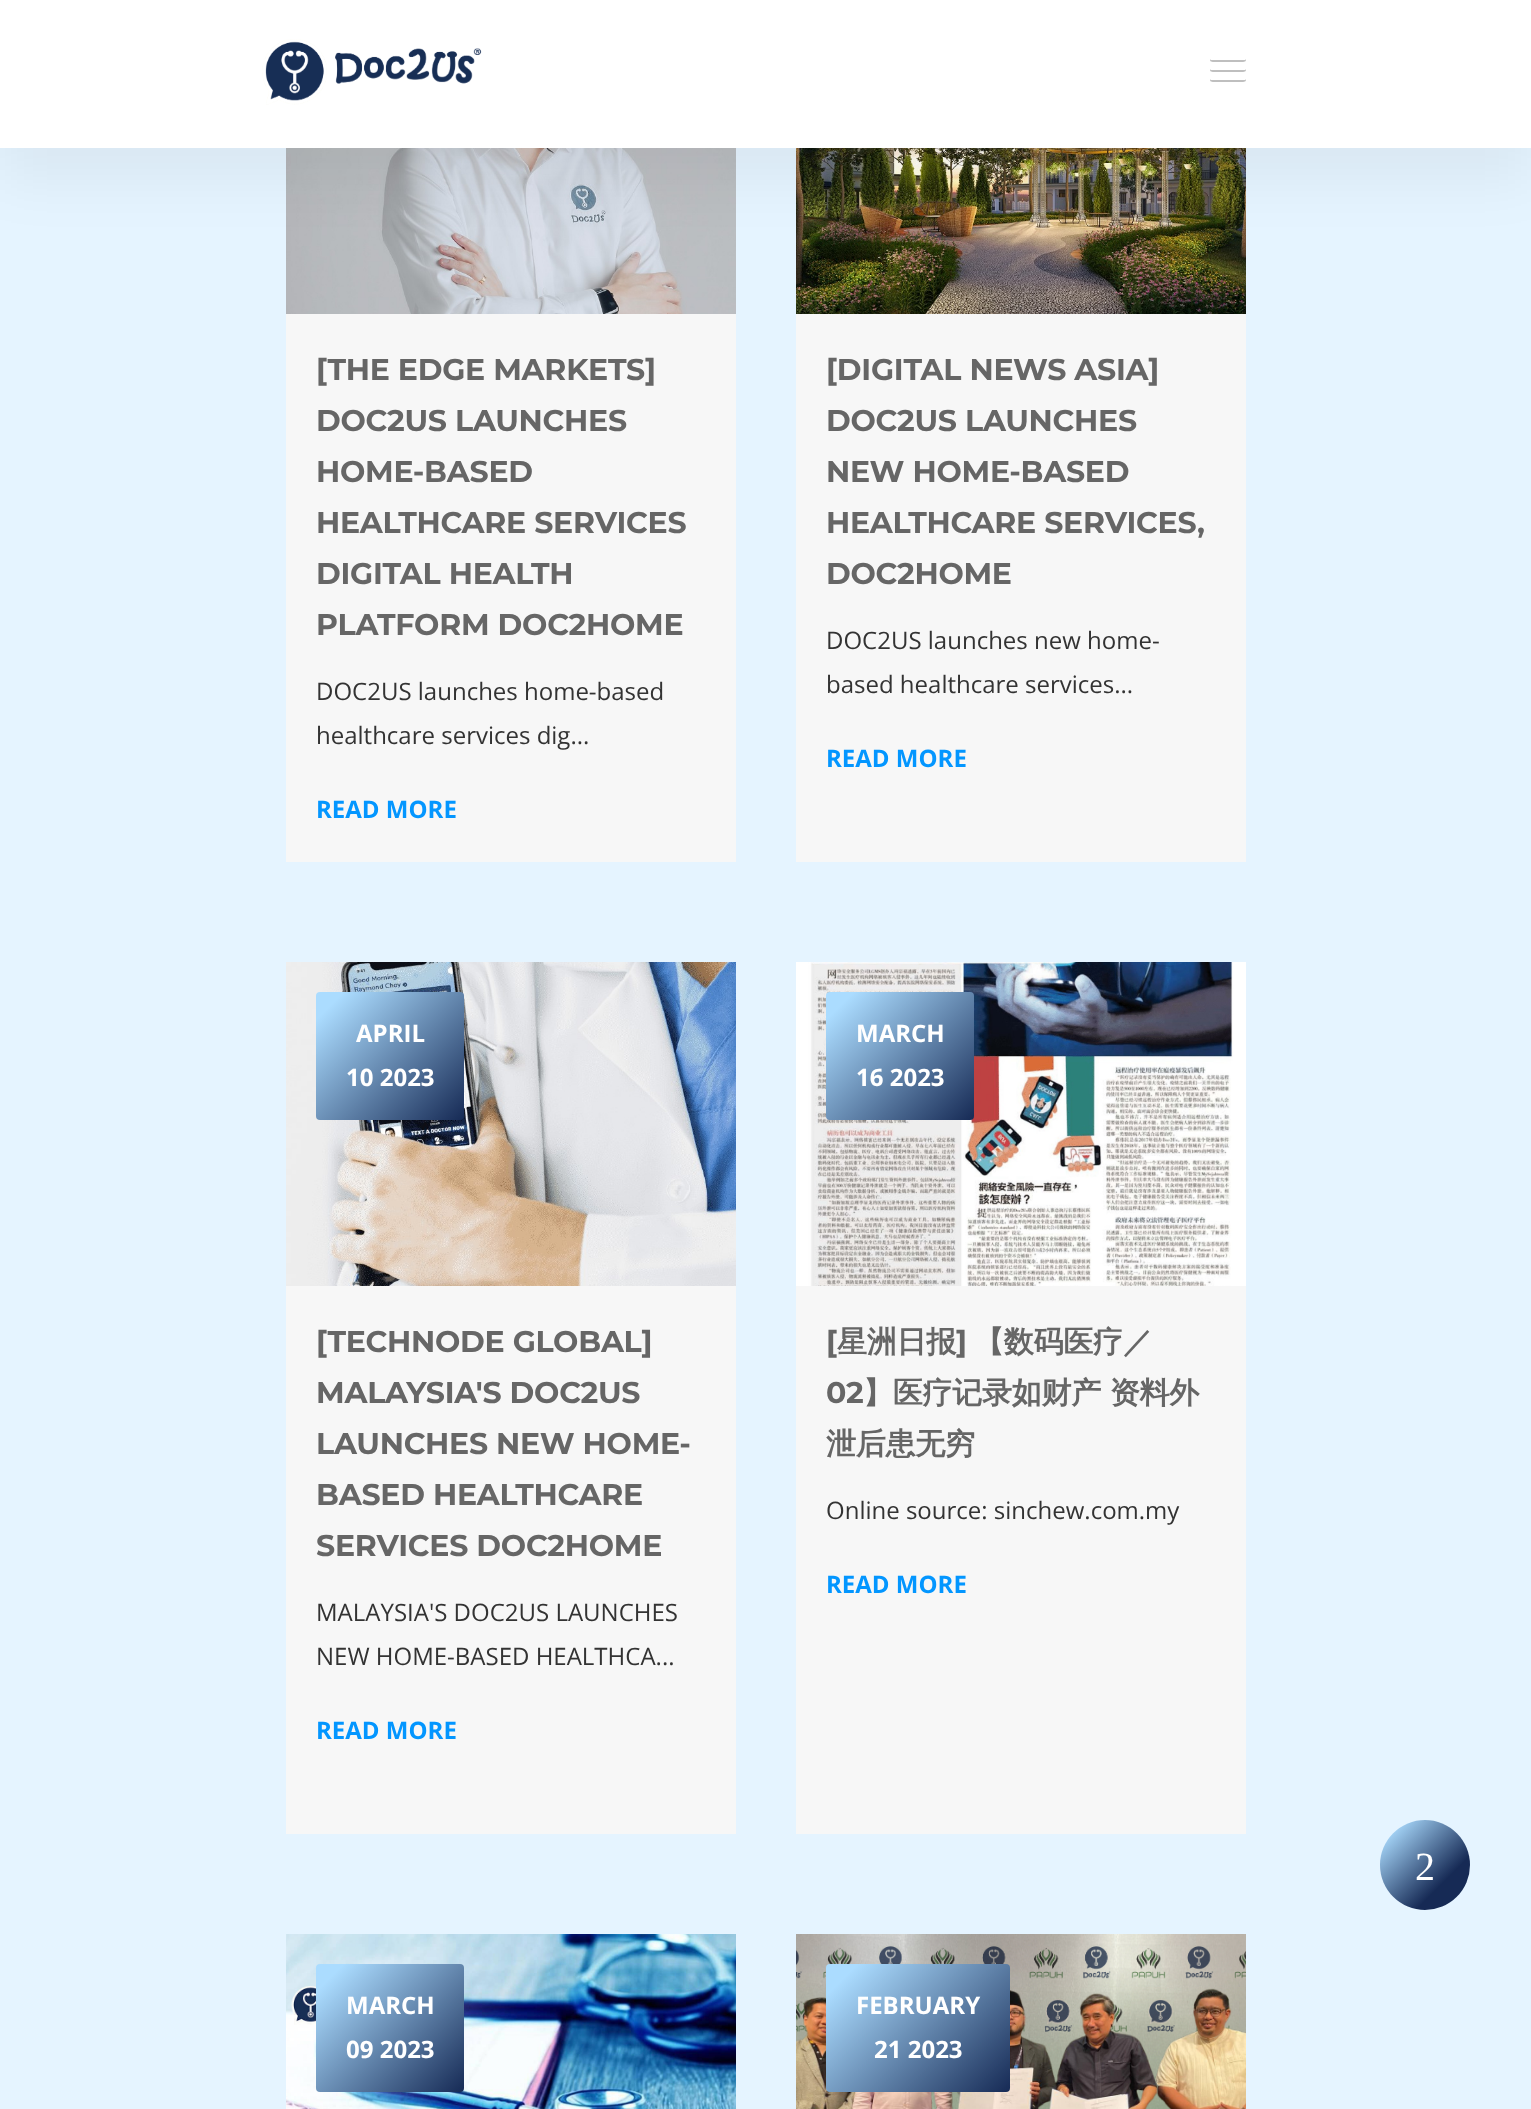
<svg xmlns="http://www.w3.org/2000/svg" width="1531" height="2109">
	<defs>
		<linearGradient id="g1" gradientUnits="userSpaceOnUse" x1="321" y1="987" x2="459" y2="1125"><stop offset="0.1" stop-color="#ABDCFF" /><stop offset="1" stop-color="#162A55" /></linearGradient>
		<linearGradient id="g2" gradientUnits="userSpaceOnUse" x1="831" y1="987" x2="969" y2="1125"><stop offset="0.1" stop-color="#ABDCFF" /><stop offset="1" stop-color="#162A55" /></linearGradient>
		<linearGradient id="g3" gradientUnits="userSpaceOnUse" x1="321" y1="1959" x2="459" y2="2097"><stop offset="0.1" stop-color="#ABDCFF" /><stop offset="1" stop-color="#162A55" /></linearGradient>
		<linearGradient id="g4" gradientUnits="userSpaceOnUse" x1="840" y1="1950" x2="996" y2="2106"><stop offset="0.1" stop-color="#ABDCFF" /><stop offset="1" stop-color="#162A55" /></linearGradient>
		<linearGradient id="g5" gradientUnits="userSpaceOnUse" x1="1380" y1="1820" x2="1470" y2="1910"><stop offset="0.1" stop-color="#ABDCFF" /><stop offset="0.7" stop-color="#162A55" /></linearGradient>
	</defs>
	<rect width="100%" height="100%" fill="#E5F4FF" />
	<image x="286" y="148" width="450" height="166" href="assets/img2.png" />
	<image x="796" y="148" width="450" height="166" href="assets/img3.png" />
	<rect x="0" y="32" width="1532" height="148" fill="#000000" fill-opacity="0.05" filter="blur(28px)" />
	<rect x="0" y="0" width="1531" height="148" fill="#FFFFFF" />
	<image x="262" y="39" width="220" height="66" href="assets/img1.png" />
	<path d="M1210.5 59C1208 63 1217 62 1217.5 62H1238.5C1239 62 1248 63 1245.5 59C1245.5 59.5 1244.5 60 1244 60H1212C1211.5 60 1210.5 59.5 1210.5 59Z" fill="#BFBFBF" />
	<rect x="1210" y="56" width="36" height="4" rx="2" fill="#FFFFFF" />
	<path d="M1210.5 69C1208 73 1217 72 1217.5 72H1238.5C1239 72 1248 73 1245.5 69C1245.5 69.5 1244.5 70 1244 70H1212C1211.5 70 1210.5 69.5 1210.5 69Z" fill="#BFBFBF" />
	<rect x="1210" y="66" width="36" height="4" rx="2" fill="#FFFFFF" />
	<path d="M1210.5 79C1208 83 1217 82 1217.5 82H1238.5C1239 82 1248 83 1245.5 79C1245.5 79.5 1244.5 80 1244 80H1212C1211.5 80 1210.5 79.5 1210.5 79Z" fill="#BFBFBF" />
	<rect x="1210" y="76" width="36" height="4" rx="2" fill="#FFFFFF" />
	<rect x="286" y="314" width="450" height="548" fill="#F7F7F7" />
	<g font-family="Montserrat" font-size="30" font-weight="700" letter-spacing="-0.25" fill="#666666">
		<text x="316" y="380">[THE EDGE MARKETS]</text>
		<text x="316" y="431">DOC2US LAUNCHES</text>
		<text x="316" y="482">HOME-BASED</text>
		<text x="316" y="533">HEALTHCARE SERVICES</text>
		<text x="316" y="584">DIGITAL HEALTH</text>
		<text x="316" y="635">PLATFORM DOC2HOME</text>
	</g>
	<g font-family="Open Sans" font-size="24" fill="#333333">
		<text x="316" y="700">DOC2US launches home-based</text>
		<text x="316" y="744">healthcare services dig...</text>
	</g>
	<text x="316" y="818" font-family="Open Sans" font-size="24" font-weight="700" fill="#0396FF">READ MORE</text>
	<rect x="796" y="314" width="450" height="548" fill="#F7F7F7" />
	<g font-family="Montserrat" font-size="30" font-weight="700" letter-spacing="-0.25" fill="#666666">
		<text x="826" y="380">[DIGITAL NEWS ASIA]</text>
		<text x="826" y="431">DOC2US LAUNCHES</text>
		<text x="826" y="482">NEW HOME-BASED</text>
		<text x="826" y="533">HEALTHCARE SERVICES,</text>
		<text x="826" y="584">DOC2HOME</text>
	</g>
	<g font-family="Open Sans" font-size="24" fill="#333333">
		<text x="826" y="649">DOC2US launches new home-</text>
		<text x="826" y="693">based healthcare services...</text>
	</g>
	<text x="826" y="767" font-family="Open Sans" font-size="24" font-weight="700" fill="#0396FF">READ MORE</text>
	<image x="286" y="962" width="450" height="324" href="assets/img4.png" />
	<rect x="316" y="992" width="148" height="128" rx="4" fill="url(#g1)" />
	<g font-family="Open Sans" font-size="24" font-weight="700" fill="#FFFFFF">
		<text x="356" y="1042">APRIL</text>
		<text x="346" y="1086">10 2023</text>
	</g>
	<rect x="286" y="1286" width="450" height="548" fill="#F7F7F7" />
	<g font-family="Montserrat" font-size="30" font-weight="700" letter-spacing="-0.25" fill="#666666">
		<text x="316" y="1352">[TECHNODE GLOBAL]</text>
		<text x="316" y="1403">MALAYSIA'S DOC2US</text>
		<text x="316" y="1454">LAUNCHES NEW HOME-</text>
		<text x="316" y="1505">BASED HEALTHCARE</text>
		<text x="316" y="1556">SERVICES DOC2HOME</text>
	</g>
	<g font-family="Open Sans" font-size="24" fill="#333333">
		<text x="316" y="1621">MALAYSIA'S DOC2US LAUNCHES</text>
		<text x="316" y="1665">NEW HOME-BASED HEALTHCA...</text>
	</g>
	<text x="316" y="1739" font-family="Open Sans" font-size="24" font-weight="700" fill="#0396FF">READ MORE</text>
	<image x="796" y="962" width="450" height="324" href="assets/img5.png" />
	<rect x="826" y="992" width="148" height="128" rx="4" fill="url(#g2)" />
	<g font-family="Open Sans" font-size="24" font-weight="700" fill="#FFFFFF">
		<text x="856" y="1042">MARCH</text>
		<text x="856" y="1086">16 2023</text>
	</g>
	<rect x="796" y="1286" width="450" height="548" fill="#F7F7F7" />
	<text x="826" y="1352" font-family="Montserrat" font-size="30" font-weight="700" letter-spacing="-0.25" fill="#666666">[</text>
	<text x="837" y="1352" font-family="WenQuanYi Zen Hei" font-size="30" font-weight="700" letter-spacing="-0.25" fill="#666666">星洲日报</text>
	<text x="956" y="1352" font-family="Montserrat" font-size="30" font-weight="700" letter-spacing="-0.25" fill="#666666">]</text>
	<text x="974" y="1352" font-family="WenQuanYi Zen Hei" font-size="30" font-weight="700" letter-spacing="-0.25" fill="#666666">【数码医疗／</text>
	<text x="826" y="1403" font-family="Montserrat" font-size="30" font-weight="700" letter-spacing="-0.25" fill="#666666">02</text>
	<g font-family="WenQuanYi Zen Hei" font-size="30" font-weight="700" letter-spacing="-0.25" fill="#666666">
		<text x="863" y="1403">】医疗记录如财产 资料外</text>
		<text x="826" y="1454">泄后患无穷</text>
	</g>
	<text x="826" y="1519" font-family="Open Sans" font-size="24" fill="#333333">Online source: sinchew.com.my</text>
	<text x="826" y="1593" font-family="Open Sans" font-size="24" font-weight="700" fill="#0396FF">READ MORE</text>
	<image x="286" y="1934" width="450" height="175" href="assets/img6.png" />
	<rect x="316" y="1964" width="148" height="128" rx="4" fill="url(#g3)" />
	<g font-family="Open Sans" font-size="24" font-weight="700" fill="#FFFFFF">
		<text x="346" y="2014">MARCH</text>
		<text x="346" y="2058">09 2023</text>
	</g>
	<image x="796" y="1934" width="450" height="175" href="assets/img7.png" />
	<rect x="826" y="1964" width="184" height="128" rx="4" fill="url(#g4)" />
	<g font-family="Open Sans" font-size="24" font-weight="700" fill="#FFFFFF">
		<text x="856" y="2014">FEBRUARY</text>
		<text x="874" y="2058">21 2023</text>
	</g>
	<circle cx="1425" cy="1865" r="45" fill="url(#g5)" />
	<text x="1415" y="1880" font-family="Liberation Serif" font-size="40" fill="#FFFFFF">2</text>
</svg>
